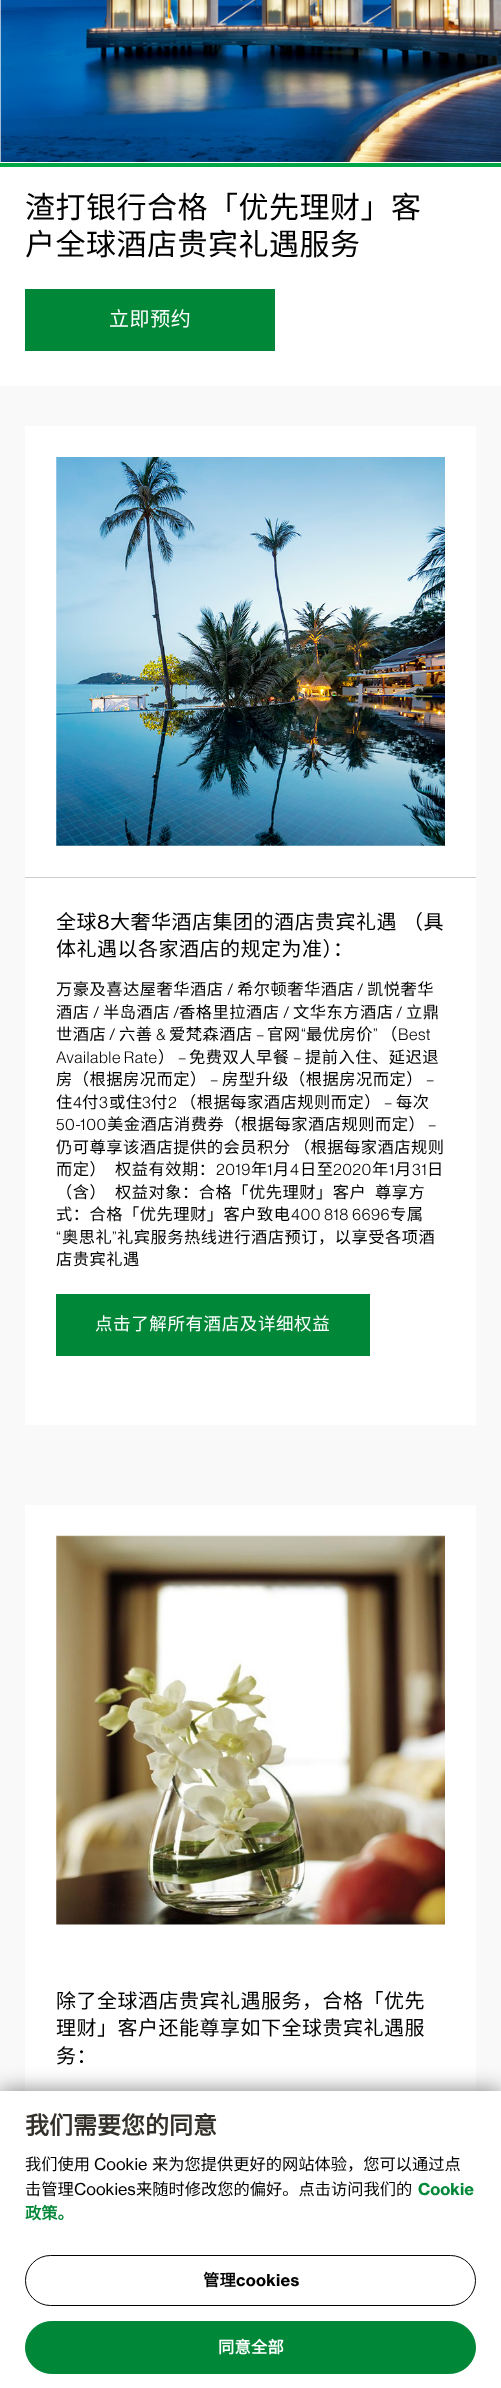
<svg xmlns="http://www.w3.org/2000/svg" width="501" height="2388">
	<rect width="100%" height="100%" fill="#FFFFFF" />
	<image x="0" y="0" width="501" height="162" href="assets/img1.png" />
	<rect x="0" y="163" width="501" height="4" fill="#00A546" />
	<g font-family="Noto Sans CJK SC" font-size="30" letter-spacing="0.5" fill="#000000">
		<text x="25" y="218">渣打银行合格「优先理财」客</text>
		<text x="25" y="255">户全球酒店贵宾礼遇服务</text>
	</g>
	<rect x="25" y="289" width="250" height="62" fill="#008738" />
	<text x="109" y="326" font-family="Noto Sans CJK SC" font-size="20" letter-spacing="0.6" fill="#FFFFFF">立即预约</text>
	<rect x="0" y="386" width="501" height="1705" fill="#F9F9F9" />
	<rect x="25" y="877" width="451" height="1" fill="#CCCCCC" />
	<rect x="25" y="426" width="451" height="451" fill="#FFFFFF" />
	<image x="56" y="457" width="389" height="389" href="assets/img2.png" />
	<rect x="25" y="878" width="451" height="547" fill="#FFFFFF" />
	<text x="56" y="929" font-family="Noto Sans CJK SC" font-size="20" letter-spacing="0.5" fill="#000000">全球</text>
	<text x="97" y="929" font-family="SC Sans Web" font-size="20" letter-spacing="0.5" fill="#000000">8</text>
	<g font-family="Noto Sans CJK SC" font-size="20" letter-spacing="0.5" fill="#000000">
		<text x="110" y="929" word-spacing="1">大奢华酒店集团的酒店贵宾礼遇 （具</text>
		<text x="56" y="956">体礼遇以各家酒店的规定为准）：</text>
	</g>
	<text x="56" y="995" font-family="Noto Sans CJK SC" font-size="16.25" letter-spacing="0.5" fill="#000000">万豪及喜达屋奢华酒店</text>
	<text x="227" y="995" font-family="SC Sans Web" font-size="16.25" font-weight="300" letter-spacing="0.5" fill="#000000">/</text>
	<text x="237" y="995" font-family="Noto Sans CJK SC" font-size="16.25" letter-spacing="0.5" fill="#000000">希尔顿奢华酒店</text>
	<text x="357" y="995" font-family="SC Sans Web" font-size="16.25" font-weight="300" letter-spacing="0.5" fill="#000000">/</text>
	<g font-family="Noto Sans CJK SC" font-size="16.25" letter-spacing="0.5" fill="#000000">
		<text x="367" y="995">凯悦奢华</text>
		<text x="56" y="1018">酒店</text>
	</g>
	<text x="93" y="1018" font-family="SC Sans Web" font-size="16.25" font-weight="300" letter-spacing="0.5" fill="#000000">/</text>
	<text x="103" y="1018" font-family="Noto Sans CJK SC" font-size="16.25" letter-spacing="0.5" fill="#000000">半岛酒店</text>
	<text x="173" y="1018" font-family="SC Sans Web" font-size="16.25" font-weight="300" letter-spacing="0.5" fill="#000000">/</text>
	<text x="179" y="1018" font-family="Noto Sans CJK SC" font-size="16.25" letter-spacing="0.5" fill="#000000">香格里拉酒店</text>
	<text x="283" y="1018" font-family="SC Sans Web" font-size="16.25" font-weight="300" letter-spacing="0.5" fill="#000000">/</text>
	<text x="293" y="1018" font-family="Noto Sans CJK SC" font-size="16.25" letter-spacing="0.5" fill="#000000">文华东方酒店</text>
	<text x="396" y="1018" font-family="SC Sans Web" font-size="16.25" font-weight="300" letter-spacing="0.5" fill="#000000">/</text>
	<g font-family="Noto Sans CJK SC" font-size="16.25" letter-spacing="0.5" fill="#000000">
		<text x="406" y="1018">立鼎</text>
		<text x="56" y="1040">世酒店</text>
	</g>
	<text x="109" y="1040" font-family="SC Sans Web" font-size="16.25" font-weight="300" letter-spacing="0.5" fill="#000000">/</text>
	<text x="119" y="1040" font-family="Noto Sans CJK SC" font-size="16.25" letter-spacing="0.5" fill="#000000">六善</text>
	<text x="156" y="1040" font-family="SC Sans Web" font-size="16.25" font-weight="300" letter-spacing="0.5" fill="#000000">&amp;</text>
	<text x="169" y="1040" font-family="Noto Sans CJK SC" font-size="16.25" letter-spacing="0.5" fill="#000000">爱梵森酒店</text>
	<text x="256" y="1040" font-family="SC Sans Web" font-size="16.25" font-weight="300" letter-spacing="0.5" fill="#000000">–</text>
	<text x="267" y="1040" font-family="Noto Sans CJK SC" font-size="16.25" letter-spacing="0.5" fill="#000000">官网</text>
	<text x="301" y="1040" font-family="SC Sans Web" font-size="16.25" font-weight="300" letter-spacing="0.5" fill="#000000">“</text>
	<text x="306" y="1040" font-family="Noto Sans CJK SC" font-size="16.25" letter-spacing="0.5" fill="#000000">最优房价</text>
	<text x="373" y="1040" font-family="SC Sans Web" font-size="16.25" font-weight="300" letter-spacing="0.5" fill="#000000">”</text>
	<text x="381" y="1040" font-family="Noto Sans CJK SC" font-size="16.25" letter-spacing="0.5" fill="#000000">（</text>
	<g font-family="SC Sans Web" font-size="16.25" font-weight="300" letter-spacing="0.5" fill="#000000">
		<text x="398" y="1040">Best</text>
		<text x="56" y="1063">Available Rate</text>
	</g>
	<text x="158" y="1063" font-family="Noto Sans CJK SC" font-size="16.25" letter-spacing="0.5" fill="#000000">）</text>
	<text x="178" y="1063" font-family="SC Sans Web" font-size="16.25" font-weight="300" letter-spacing="0.5" fill="#000000">–</text>
	<text x="189" y="1063" font-family="Noto Sans CJK SC" font-size="16.25" letter-spacing="0.5" fill="#000000">免费双人早餐</text>
	<text x="293" y="1063" font-family="SC Sans Web" font-size="16.25" font-weight="300" letter-spacing="0.5" fill="#000000">–</text>
	<g font-family="Noto Sans CJK SC" font-size="16.25" letter-spacing="0.5" fill="#000000">
		<text x="305" y="1063">提前入住、延迟退</text>
		<text x="56" y="1085">房（根据房况而定）</text>
	</g>
	<text x="210" y="1085" font-family="SC Sans Web" font-size="16.25" font-weight="300" letter-spacing="0.5" fill="#000000">–</text>
	<text x="222" y="1085" font-family="Noto Sans CJK SC" font-size="16.25" letter-spacing="0.5" fill="#000000">房型升级（根据房况而定）</text>
	<text x="426" y="1085" font-family="SC Sans Web" font-size="16.25" font-weight="300" letter-spacing="0.5" fill="#000000">–</text>
	<text x="56" y="1108" font-family="Noto Sans CJK SC" font-size="16.25" letter-spacing="0.5" fill="#000000">住</text>
	<text x="73" y="1108" font-family="SC Sans Web" font-size="16.25" font-weight="300" letter-spacing="0.5" fill="#000000">4</text>
	<text x="82" y="1108" font-family="Noto Sans CJK SC" font-size="16.25" letter-spacing="0.5" fill="#000000">付</text>
	<text x="99" y="1108" font-family="SC Sans Web" font-size="16.25" font-weight="300" letter-spacing="0.5" fill="#000000">3</text>
	<text x="109" y="1108" font-family="Noto Sans CJK SC" font-size="16.25" letter-spacing="0.5" fill="#000000">或住</text>
	<text x="142" y="1108" font-family="SC Sans Web" font-size="16.25" font-weight="300" letter-spacing="0.5" fill="#000000">3</text>
	<text x="151" y="1108" font-family="Noto Sans CJK SC" font-size="16.25" letter-spacing="0.5" fill="#000000">付</text>
	<text x="168" y="1108" font-family="SC Sans Web" font-size="16.25" font-weight="300" letter-spacing="0.5" fill="#000000">2</text>
	<text x="180" y="1108" font-family="Noto Sans CJK SC" font-size="16.25" letter-spacing="0.5" fill="#000000">（根据每家酒店规则而定）</text>
	<text x="384" y="1108" font-family="SC Sans Web" font-size="16.25" font-weight="300" letter-spacing="0.5" fill="#000000">–</text>
	<text x="396" y="1108" font-family="Noto Sans CJK SC" font-size="16.25" letter-spacing="0.5" fill="#000000">每次</text>
	<text x="56" y="1130" font-family="SC Sans Web" font-size="16.25" font-weight="300" letter-spacing="0.5" fill="#000000">50-100</text>
	<text x="107" y="1130" font-family="Noto Sans CJK SC" font-size="16.25" letter-spacing="0.5" fill="#000000">美金酒店消费券（根据每家酒店规则而定）</text>
	<text x="428" y="1130" font-family="SC Sans Web" font-size="16.25" font-weight="300" letter-spacing="0.5" fill="#000000">–</text>
	<g font-family="Noto Sans CJK SC" font-size="16.25" letter-spacing="0.5" fill="#000000">
		<text x="56" y="1153" word-spacing="-1">仍可尊享该酒店提供的会员积分 （根据每家酒店规则</text>
		<text x="56" y="1175">而定）</text>
		<text x="115" y="1175">权益有效期：</text>
	</g>
	<text x="216" y="1175" font-family="SC Sans Web" font-size="16.25" font-weight="300" letter-spacing="0.5" fill="#000000">2019</text>
	<text x="251" y="1175" font-family="Noto Sans CJK SC" font-size="16.25" letter-spacing="0.5" fill="#000000">年</text>
	<text x="267" y="1175" font-family="SC Sans Web" font-size="16.25" font-weight="300" letter-spacing="0.5" fill="#000000">1</text>
	<text x="273" y="1175" font-family="Noto Sans CJK SC" font-size="16.25" letter-spacing="0.5" fill="#000000">月</text>
	<text x="290" y="1175" font-family="SC Sans Web" font-size="16.25" font-weight="300" letter-spacing="0.5" fill="#000000">4</text>
	<text x="300" y="1175" font-family="Noto Sans CJK SC" font-size="16.25" letter-spacing="0.5" fill="#000000">日至</text>
	<text x="333" y="1175" font-family="SC Sans Web" font-size="16.25" font-weight="300" letter-spacing="0.5" fill="#000000">2020</text>
	<text x="372" y="1175" font-family="Noto Sans CJK SC" font-size="16.25" letter-spacing="0.5" fill="#000000">年</text>
	<text x="389" y="1175" font-family="SC Sans Web" font-size="16.25" font-weight="300" letter-spacing="0.5" fill="#000000">1</text>
	<text x="395" y="1175" font-family="Noto Sans CJK SC" font-size="16.25" letter-spacing="0.5" fill="#000000">月</text>
	<text x="412" y="1175" font-family="SC Sans Web" font-size="16.25" font-weight="300" letter-spacing="0.5" fill="#000000">31</text>
	<g font-family="Noto Sans CJK SC" font-size="16.25" letter-spacing="0.5" fill="#000000">
		<text x="427" y="1175">日</text>
		<text x="56" y="1198">（含）</text>
		<text x="115" y="1198">权益对象：合格「优先理财」客户</text>
		<text x="375" y="1198">尊享方</text>
		<text x="56" y="1220">式：合格「优先理财」客户致电</text>
	</g>
	<text x="291" y="1220" font-family="SC Sans Web" font-size="16.25" font-weight="300" letter-spacing="0.5" fill="#000000">400 818 6696</text>
	<text x="390" y="1220" font-family="Noto Sans CJK SC" font-size="16.25" letter-spacing="0.5" fill="#000000">专属</text>
	<text x="56" y="1243" font-family="SC Sans Web" font-size="16.25" font-weight="300" letter-spacing="0.5" fill="#000000">“</text>
	<text x="62" y="1243" font-family="Noto Sans CJK SC" font-size="16.25" letter-spacing="0.5" fill="#000000">奥思礼</text>
	<text x="112" y="1243" font-family="SC Sans Web" font-size="16.25" font-weight="300" letter-spacing="0.5" fill="#000000">”</text>
	<g font-family="Noto Sans CJK SC" font-size="16.25" letter-spacing="0.5" fill="#000000">
		<text x="117" y="1243">礼宾服务热线进行酒店预订，以享受各项酒</text>
		<text x="56" y="1265">店贵宾礼遇</text>
	</g>
	<rect x="56" y="1294" width="314" height="62" fill="#008738" />
	<text x="95" y="1330" font-family="Noto Sans CJK SC" font-size="17.5" letter-spacing="0.6" fill="#FFFFFF">点击了解所有酒店及详细权益</text>
	<rect x="25" y="1505" width="451" height="586" fill="#FFFFFF" />
	<image x="56" y="1535" width="389" height="390" href="assets/img3.png" />
	<g font-family="Noto Sans CJK SC" font-size="20" letter-spacing="0.5" fill="#000000">
		<text x="56" y="2008">除了全球酒店贵宾礼遇服务，合格「优先</text>
		<text x="56" y="2035">理财」客户还能尊享如下全球贵宾礼遇服</text>
		<text x="56" y="2063">务：</text>
	</g>
	<rect x="0" y="2091" width="501" height="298" fill="#000000" fill-opacity="0.5" filter="blur(11px)" />
	<rect x="0" y="2091" width="501" height="297" fill="#FFFFFF" />
	<text x="25" y="2134" font-family="Noto Sans CJK SC" font-size="24" font-weight="700" fill="#33302B">我们需要您的同意</text>
	<text x="25" y="2170" font-family="Noto Sans CJK SC" font-size="16.25" fill="#000000">我们使用</text>
	<text x="94" y="2170" font-family="SC Sans Web" font-size="16.25" fill="#000000">Cookie</text>
	<g font-family="Noto Sans CJK SC" font-size="16.25" fill="#000000">
		<text x="152" y="2170">来为您提供更好的网站体验，您可以通过点</text>
		<text x="25" y="2195">击管理</text>
	</g>
	<text x="74" y="2195" font-family="SC Sans Web" font-size="16.25" fill="#000000">Cookies</text>
	<text x="136" y="2195" font-family="Noto Sans CJK SC" font-size="16.25" fill="#000000">来随时修改您的偏好。点击访问我们的</text>
	<text x="418" y="2195" font-family="SC Sans Web" font-size="16.25" font-weight="700" fill="#008738">Cookie</text>
	<text x="25" y="2219" font-family="Noto Sans CJK SC" font-size="16.25" font-weight="700" fill="#008738">政策。</text>
	<rect x="25.5" y="2255.5" width="450" height="50" rx="25" fill="none" stroke="#000000" />
	<text x="203" y="2286" font-family="Noto Sans CJK SC" font-size="16.25" font-weight="700" letter-spacing="0.25" fill="#000000">管理</text>
	<text x="236" y="2286" font-family="SC Sans Web" font-size="16.25" font-weight="700" letter-spacing="0.25" fill="#000000">cookies</text>
	<rect x="25.5" y="2321.5" width="450" height="52" rx="26" fill="#008738" stroke="#008738" />
	<text x="218" y="2353" font-family="Noto Sans CJK SC" font-size="16.25" font-weight="700" letter-spacing="0.25" fill="#FFFFFF">同意全部</text>
</svg>
